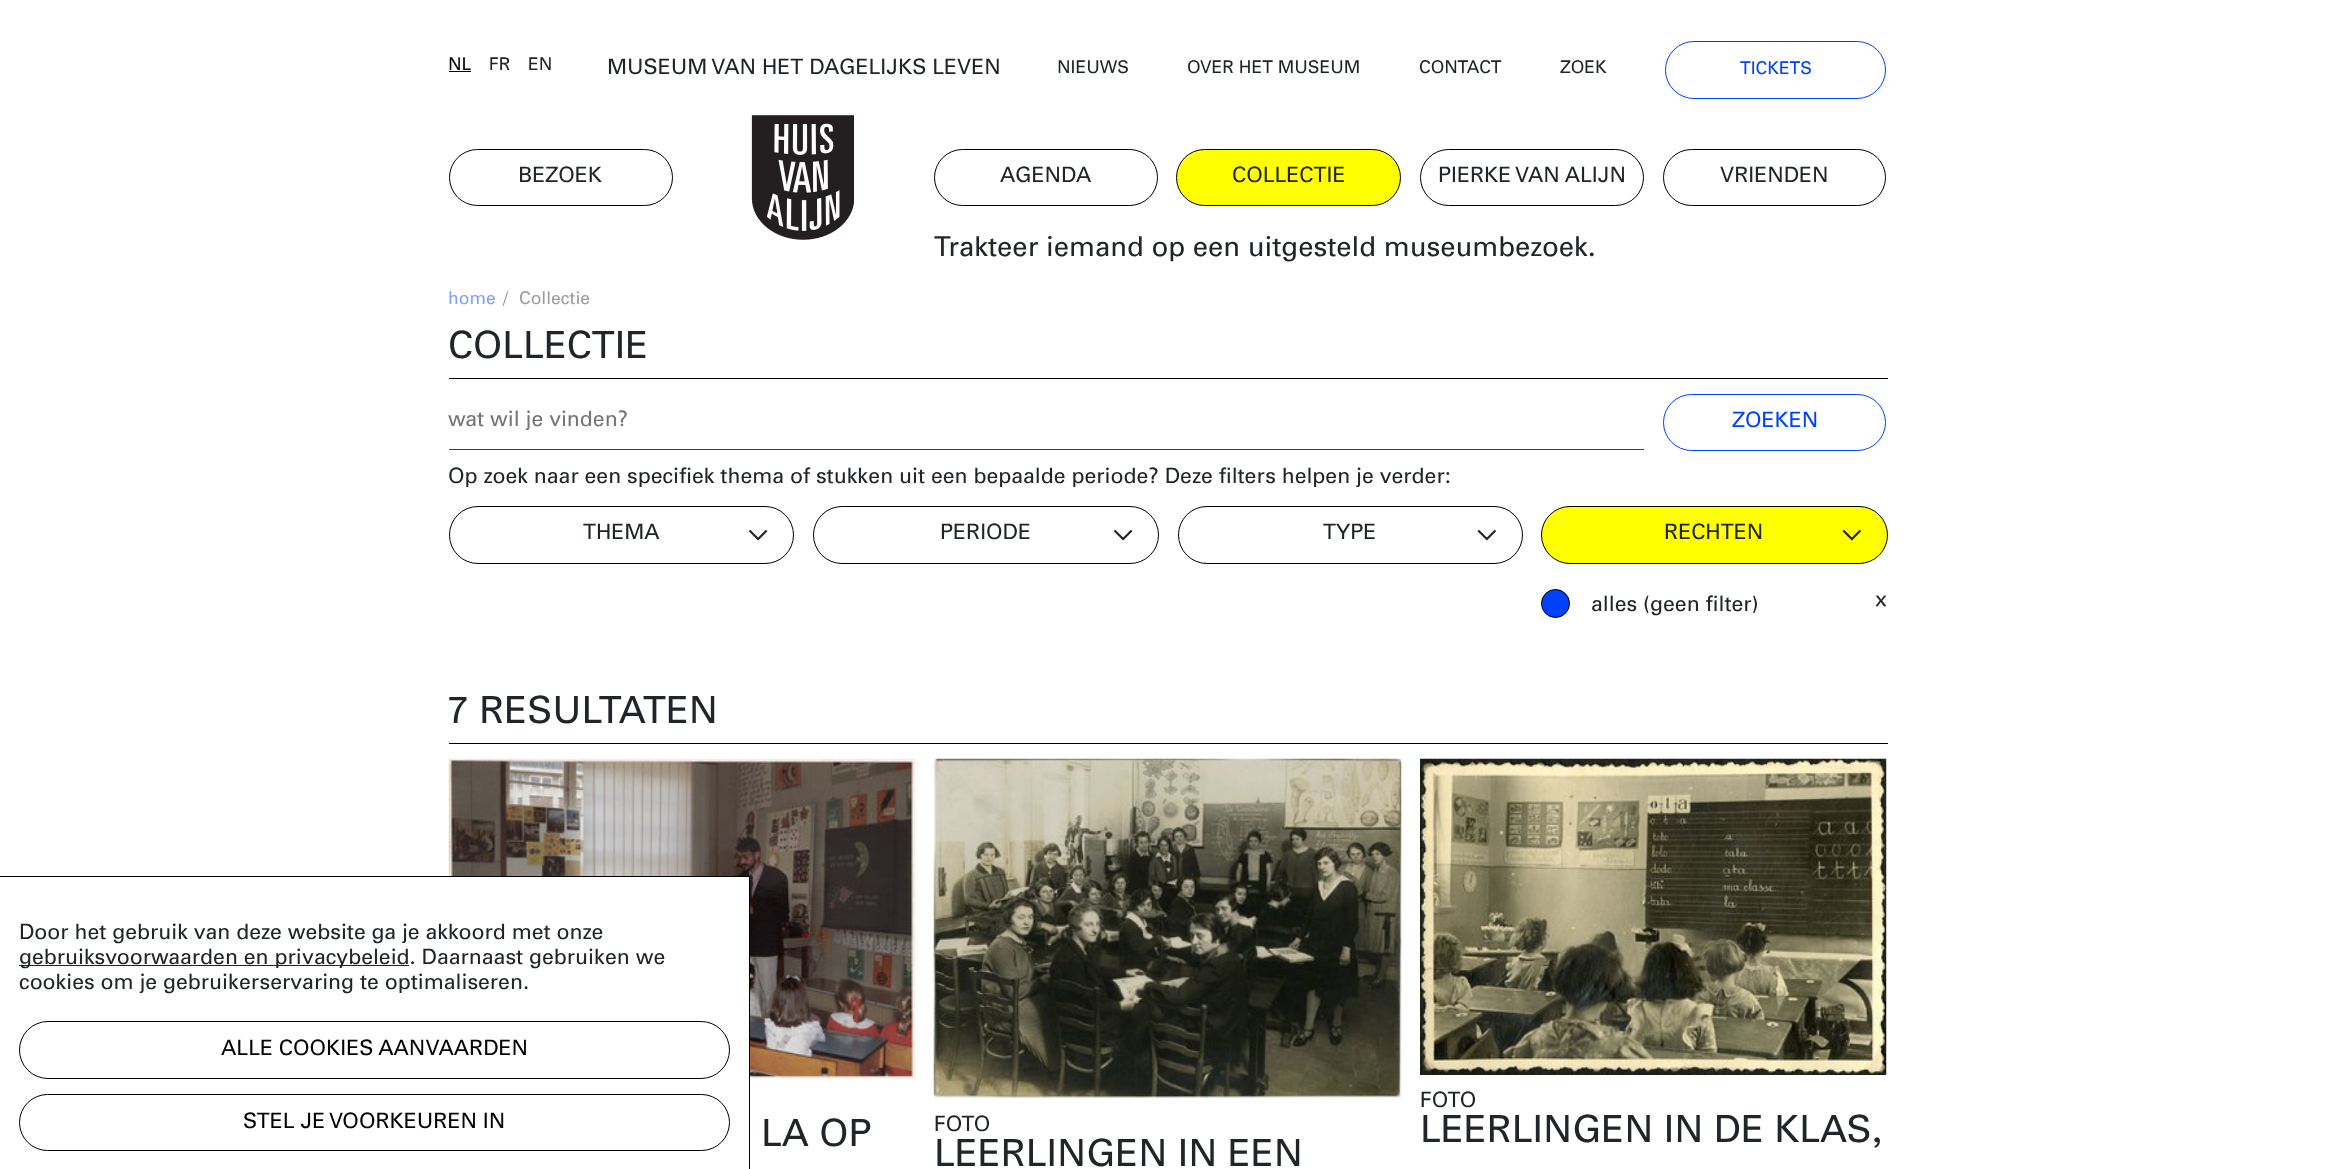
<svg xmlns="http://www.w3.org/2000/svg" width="2334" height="1169">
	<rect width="100%" height="100%" fill="#FFFFFF" />
	<text x="448" y="70" font-family="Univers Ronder" font-size="17.5" fill="#000000">NL</text>
	<rect x="449" y="71" width="22" height="1" fill="#000000" />
	<g font-family="Univers Ronder" font-size="17.5" fill="#212529">
		<text x="489" y="70">FR</text>
		<text x="528" y="70">EN</text>
	</g>
	<text x="607" y="74" font-family="Univers Ronder" font-size="21.25" fill="#212529">MUSEUM VAN HET DAGELIJKS LEVEN</text>
	<g font-family="Univers Ronder" font-size="17.5" fill="#212529">
		<text x="1057" y="73">NIEUWS</text>
		<text x="1187" y="73">OVER HET MUSEUM</text>
		<text x="1419" y="73">CONTACT</text>
		<text x="1560" y="73">ZOEK</text>
	</g>
	<rect x="1665.5" y="41.5" width="220" height="57" rx="28.5" fill="none" stroke="#0041FF" />
	<text x="1740" y="74" font-family="Univers Ronder" font-size="17.5" fill="#0041FF">TICKETS</text>
	<rect x="449.5" y="149.5" width="223" height="56" rx="28" fill="none" stroke="#000000" />
	<text x="518" y="182" font-family="Univers Ronder" font-size="21.25" fill="#212529">BEZOEK</text>
	<image x="751" y="115" width="103" height="125" href="assets/img1.png" />
	<rect x="934.5" y="149.5" width="223" height="56" rx="28" fill="none" stroke="#000000" />
	<text x="1000" y="182" font-family="Univers Ronder" font-size="21.25" fill="#212529">AGENDA</text>
	<rect x="1176.5" y="149.5" width="224" height="56" rx="28" fill="#FFFF00" stroke="#000000" />
	<text x="1232" y="182" font-family="Univers Ronder" font-size="21.25" fill="#212529">COLLECTIE</text>
	<rect x="1420.5" y="149.5" width="223" height="56" rx="28" fill="none" stroke="#000000" />
	<text x="1438" y="182" font-family="Univers Ronder" font-size="21.25" fill="#212529">PIERKE VAN ALIJN</text>
	<rect x="1663.5" y="149.5" width="222" height="56" rx="28" fill="none" stroke="#000000" />
	<text x="1720" y="182" font-family="Univers Ronder" font-size="21.25" fill="#212529">VRIENDEN</text>
	<text x="934" y="256" font-family="Univers Ronder" font-size="27.5" fill="#212529">Trakteer iemand op een uitgesteld museumbezoek.</text>
	<text x="448" y="304" font-family="Univers Ronder" font-size="17.5" fill="#80A0FF">home</text>
	<g font-family="Univers Ronder" font-size="17.5" fill="#9D9D9D">
		<text x="503" y="304">/</text>
		<text x="519" y="304">Collectie</text>
	</g>
	<rect x="449" y="378" width="1439" height="1" fill="#000000" />
	<text x="448" y="358" font-family="Univers Ronder" font-size="37.5" fill="#212529">COLLECTIE</text>
	<rect x="449" y="449" width="1195" height="1" fill="#0041FF" />
	<text x="448" y="426" font-family="Univers Ronder" font-size="21.25" fill="#757575">wat wil je vinden?</text>
	<rect x="1663.5" y="394.5" width="222" height="56" rx="28" fill="none" stroke="#0041FF" />
	<text x="1732" y="427" font-family="Univers Ronder" font-size="21.25" fill="#0041FF">ZOEKEN</text>
	<text x="448" y="483" font-family="Univers Ronder" font-size="21.25" fill="#212529">Op zoek naar een specifiek thema of stukken uit een bepaalde periode? Deze filters helpen je verder:</text>
	<rect x="449.5" y="506.5" width="344" height="57" rx="28.5" fill="none" stroke="#000000" />
	<text x="583" y="539" font-family="Univers Ronder" font-size="21.25" fill="#212529">THEMA</text>
	<image x="748" y="529" width="20" height="12" href="assets/img2.png" />
	<rect x="813.5" y="506.5" width="345" height="57" rx="28.5" fill="none" stroke="#000000" />
	<text x="940" y="539" font-family="Univers Ronder" font-size="21.25" fill="#212529">PERIODE</text>
	<image x="1113" y="529" width="20" height="12" href="assets/img2.png" />
	<rect x="1178.5" y="506.5" width="344" height="57" rx="28.5" fill="none" stroke="#000000" />
	<text x="1323" y="539" font-family="Univers Ronder" font-size="21.25" fill="#212529">TYPE</text>
	<image x="1477" y="529" width="19" height="12" href="assets/img3.png" />
	<rect x="1541.5" y="506.5" width="346" height="57" rx="28.5" fill="#FFFF00" stroke="#000000" />
	<text x="1664" y="539" font-family="Univers Ronder" font-size="21.25" fill="#212529">RECHTEN</text>
	<image x="1842" y="529" width="19" height="12" href="assets/img4.png" />
	<circle cx="1555.5" cy="603.5" r="14" fill="#0041FF" stroke="#000000" />
	<text x="1591" y="611" font-family="Univers Ronder" font-size="21.25" fill="#212529">alles (geen filter)</text>
	<image x="1875" y="595" width="12" height="12" href="assets/img5.png" />
	<image x="448" y="758" width="467" height="321" href="assets/img6.png" />
	<rect x="448" y="877" width="301" height="202" fill="#FFFFFF" />
	<rect x="0" y="876" width="750" height="1" fill="#000000" />
	<rect x="749" y="876" width="1" height="293" fill="#000000" />
	<text x="19" y="939" font-family="Univers Ronder" font-size="21.25" fill="#212529">Door het gebruik van deze website ga je akkoord met onze</text>
	<rect x="19" y="965" width="390" height="1" fill="#212529" />
	<g font-family="Univers Ronder" font-size="21.25" fill="#212529">
		<text x="19" y="964">gebruiksvoorwaarden en privacybeleid. Daarnaast gebruiken we</text>
		<text x="19" y="989">cookies om je gebruikerservaring te optimaliseren.</text>
	</g>
	<rect x="19.5" y="1021.5" width="710" height="57" rx="28.5" fill="none" stroke="#000000" />
	<text x="221" y="1055" font-family="Univers Ronder" font-size="21.25" fill="#000000">ALLE COOKIES AANVAARDEN</text>
	<rect x="19.5" y="1094.5" width="710" height="56" rx="28" fill="none" stroke="#000000" />
	<text x="243" y="1128" font-family="Univers Ronder" font-size="21.25" fill="#000000">STEL JE VOORKEUREN IN</text>
	<rect x="449" y="743" width="1439" height="1" fill="#000000" />
	<g font-family="Univers Ronder" font-size="37.5" fill="#212529">
		<text x="448" y="723">7 RESULTATEN</text>
		<text x="761" y="1146">LA OP</text>
	</g>
	<image x="933" y="758" width="469" height="340" href="assets/img7.png" />
	<text x="934" y="1131" font-family="Univers Ronder" font-size="21.25" fill="#212529">FOTO</text>
	<text x="934" y="1166" font-family="Univers Ronder" font-size="37.5" fill="#212529">LEERLINGEN IN EEN</text>
	<image x="1420" y="758" width="467" height="317" href="assets/img8.png" />
	<text x="1420" y="1107" font-family="Univers Ronder" font-size="21.25" fill="#212529">FOTO</text>
	<text x="1420" y="1142" font-family="Univers Ronder" font-size="37.5" fill="#212529">LEERLINGEN IN DE KLAS,</text>
</svg>
